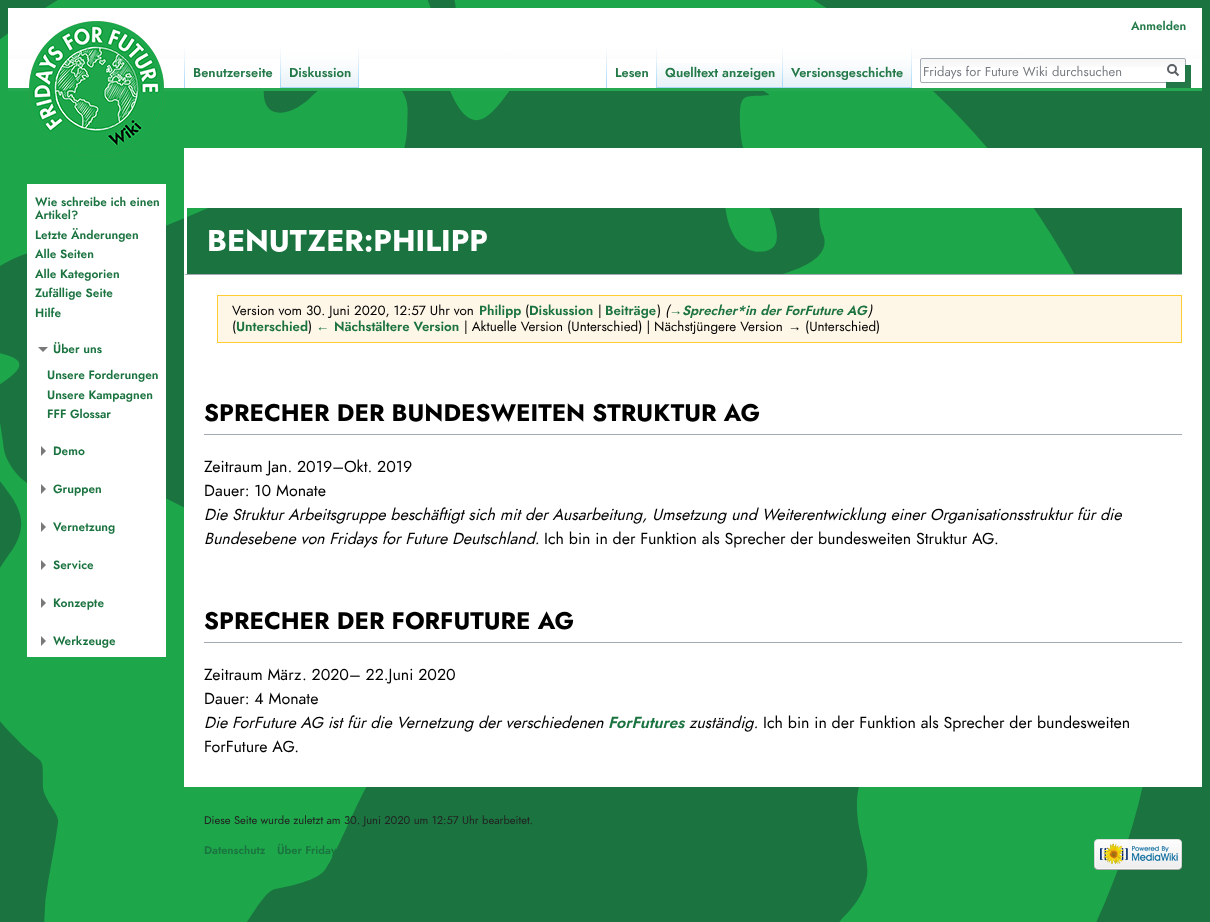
<svg xmlns="http://www.w3.org/2000/svg" width="1210" height="922">
	<defs>
		<linearGradient id="g1" gradientUnits="userSpaceOnUse" x1="605" y1="8" x2="605" y2="88"><stop offset="0.5" stop-color="#FFFFFF" /><stop offset="1" stop-color="#F6F6F6" /></linearGradient>
	</defs>
	<rect width="100%" height="100%" fill="#1B7340" />
	<image x="0" y="0" width="1143" height="922" href="assets/img1.png" />
	<rect x="8" y="8" width="1194" height="80" fill="url(#g1)" />
	<rect x="8" y="59" width="1194" height="29" fill="#FFFFFF" fill-opacity="0.96" />
	<rect x="8" y="88" width="1194" height="3" fill="#26A951" />
	<text x="1131" y="30" font-family="Jost" font-size="12" font-weight="600" fill="#247948">Anmelden</text>
	<image x="184" y="48" width="1" height="40" href="assets/img2.png" />
	<image x="358" y="48" width="1" height="40" href="assets/img2.png" />
	<image x="280" y="48" width="1" height="40" href="assets/img2.png" />
	<text x="193" y="77" font-family="Jost" font-size="13" font-weight="600" fill="#247948">Benutzerseite</text>
	<image x="281" y="48" width="78" height="40" href="assets/img3.png" />
	<image x="358" y="48" width="1" height="39" href="assets/img4.png" />
	<text x="289" y="77" font-family="Jost" font-size="13" font-weight="600" fill="#247948">Diskussion</text>
	<image x="606" y="48" width="1" height="40" href="assets/img2.png" />
	<image x="911" y="48" width="1" height="40" href="assets/img2.png" />
	<image x="656" y="48" width="1" height="40" href="assets/img2.png" />
	<text x="615" y="77" font-family="Jost" font-size="13" font-weight="600" fill="#247948">Lesen</text>
	<image x="657" y="63" width="126" height="25" href="assets/img5.png" />
	<image x="782" y="48" width="1" height="39" href="assets/img6.png" />
	<text x="665" y="77" font-family="Jost" font-size="13" font-weight="600" fill="#247948">Quelltext anzeigen</text>
	<image x="783" y="48" width="129" height="40" href="assets/img7.png" />
	<image x="911" y="48" width="1" height="39" href="assets/img4.png" />
	<text x="791" y="77" font-family="Jost" font-size="13" font-weight="600" fill="#247948">Versionsgeschichte</text>
	<image x="920" y="59" width="266" height="8" href="assets/img8.png" />
	<rect x="920.5" y="58.5" width="265" height="24" rx="1.5" fill="none" stroke="#A2A9B1" stroke-opacity="0.96" />
	<text x="923" y="76" font-family="Jost" font-size="13" fill="#787C82">Fridays for Future Wiki durchsuchen</text>
	<path d="M1166 82V88H1191V65H1185V82Z" fill="#1B7340" fill-opacity="0.96" />
	<path d="M1178.5 75.5L1174.5 71.5" fill="none" stroke="#5B5F63" stroke-width="2" />
	<circle cx="1172" cy="69" r="4" fill="none" stroke="#5B5F63" stroke-width="2" />
	<image x="29" y="21" width="135" height="135" href="assets/img9.png" />
	<rect x="27" y="184" width="139" height="473" fill="#FFFFFF" />
	<g font-family="Jost" font-size="12" font-weight="600" fill="#1B7340">
		<text x="35" y="206">Wie schreibe ich einen</text>
		<text x="35" y="219">Artikel?</text>
		<text x="35" y="239">Letzte Änderungen</text>
		<text x="35" y="258">Alle Seiten</text>
		<text x="35" y="278">Alle Kategorien</text>
		<text x="35" y="297">Zufällige Seite</text>
		<text x="35" y="317">Hilfe</text>
	</g>
	<path d="M48 347L43 352L38 347Z" fill="#797979" />
	<g font-family="Jost" font-size="12" font-weight="600" fill="#1B7340">
		<text x="53" y="353">Über uns</text>
		<text x="47" y="379">Unsere Forderungen</text>
		<text x="47" y="399">Unsere Kampagnen</text>
		<text x="47" y="418">FFF Glossar</text>
	</g>
	<path d="M41 446L46 451L41 456Z" fill="#797979" />
	<text x="53" y="455" font-family="Jost" font-size="12" font-weight="600" fill="#1B7340">Demo</text>
	<path d="M41 484L46 489L41 494Z" fill="#797979" />
	<text x="53" y="493" font-family="Jost" font-size="12" font-weight="600" fill="#1B7340">Gruppen</text>
	<path d="M41 522L46 527L41 532Z" fill="#797979" />
	<text x="53" y="531" font-family="Jost" font-size="12" font-weight="600" fill="#1B7340">Vernetzung</text>
	<path d="M41 560L46 565L41 570Z" fill="#797979" />
	<text x="53" y="569" font-family="Jost" font-size="12" font-weight="600" fill="#1B7340">Service</text>
	<path d="M41 598L46 603L41 608Z" fill="#797979" />
	<text x="53" y="607" font-family="Jost" font-size="12" font-weight="600" fill="#1B7340">Konzepte</text>
	<path d="M41 636L46 641L41 646Z" fill="#797979" />
	<text x="53" y="645" font-family="Jost" font-size="12" font-weight="600" fill="#1B7340">Werkzeuge</text>
	<rect x="184" y="148" width="1018" height="639" fill="#FFFFFF" />
	<rect x="184" y="208" width="998" height="67" fill="#1B7340" />
	<image x="187" y="208" width="888" height="66" href="assets/img10.png" />
	<path d="M1182 275H184L187 274H1182Z" fill="#A2A9B1" />
	<path d="M184 275V208H187V274Z" fill="#FFFFFF" />
	<text x="207" y="251" font-family="Jost" font-size="30" font-weight="700" fill="#FFFFFF">BENUTZER:PHILIPP</text>
	<rect x="217.5" y="295.5" width="964" height="47" fill="#FEF6E7" stroke="#FFCC33" />
	<text x="232" y="315" font-family="Jost" font-size="13.4" fill="#000000">Version vom 30. Juni 2020, 12:57 Uhr von</text>
	<text x="479" y="315" font-family="Jost" font-size="13.4" font-weight="600" fill="#1B7340">Philipp</text>
	<text x="525" y="315" font-family="Jost" font-size="13.4" fill="#000000">(</text>
	<text x="529" y="315" font-family="Jost" font-size="13.4" font-weight="600" fill="#1B7340">Diskussion</text>
	<text x="598" y="315" font-family="Jost" font-size="13.4" fill="#000000">|</text>
	<text x="605" y="315" font-family="Jost" font-size="13.4" font-weight="600" fill="#1B7340">Beiträge</text>
	<text x="657" y="315" font-family="Jost" font-size="13.4" fill="#000000">)</text>
	<text x="665" y="315" font-family="Jost" font-size="13.4" font-style="italic" fill="#000000">(</text>
	<text x="669" y="315" font-family="Liberation Serif" font-size="13.4" font-style="italic" fill="#1B7340">→</text>
	<text x="682" y="315" font-family="Jost" font-size="13.4" font-weight="600" font-style="italic" fill="#1B7340">Sprecher*in der ForFuture AG</text>
	<text x="868" y="315" font-family="Jost" font-size="13.4" font-style="italic" fill="#000000">)</text>
	<text x="232" y="331" font-family="Jost" font-size="13.4" fill="#000000">(</text>
	<text x="236" y="331" font-family="Jost" font-size="13.4" font-weight="600" fill="#1B7340">Unterschied</text>
	<text x="308" y="331" font-family="Jost" font-size="13.4" fill="#000000">)</text>
	<text x="316" y="331" font-family="Liberation Serif" font-size="13.4" fill="#1B7340">←</text>
	<text x="334" y="331" font-family="Jost" font-size="13.4" font-weight="600" fill="#1B7340">Nächstältere Version</text>
	<text x="464" y="331" font-family="Jost" font-size="13.4" fill="#000000">| Aktuelle Version (Unterschied) | Nächstjüngere Version</text>
	<text x="788" y="331" font-family="Liberation Serif" font-size="13.4" fill="#000000">→</text>
	<text x="805" y="331" font-family="Jost" font-size="13.4" fill="#000000">(Unterschied)</text>
	<rect x="204" y="434" width="978" height="1" fill="#A2A9B1" />
	<text x="204" y="421" font-family="Jost" font-size="24" font-weight="700" fill="#000000">SPRECHER DER BUNDESWEITEN STRUKTUR AG</text>
	<g font-family="Jost" font-size="16" fill="#000000">
		<text x="204" y="472">Zeitraum Jan. 2019–Okt. 2019</text>
		<text x="204" y="496">Dauer: 10 Monate</text>
	</g>
	<g font-family="Jost" font-size="16" font-style="italic" fill="#000000">
		<text x="204" y="520">Die Struktur Arbeitsgruppe beschäftigt sich mit der Ausarbeitung, Umsetzung und Weiterentwicklung einer Organisationsstruktur für die</text>
		<text x="204" y="544">Bundesebene von Fridays for Future Deutschland.</text>
	</g>
	<text x="544" y="544" font-family="Jost" font-size="16" fill="#000000">Ich bin in der Funktion als Sprecher der bundesweiten Struktur AG.</text>
	<rect x="204" y="642" width="978" height="1" fill="#A2A9B1" />
	<text x="204" y="629" font-family="Jost" font-size="24" font-weight="700" fill="#000000">SPRECHER DER FORFUTURE AG</text>
	<g font-family="Jost" font-size="16" fill="#000000">
		<text x="204" y="680">Zeitraum März. 2020– 22.Juni 2020</text>
		<text x="204" y="704">Dauer: 4 Monate</text>
	</g>
	<text x="204" y="728" font-family="Jost" font-size="16" font-style="italic" fill="#000000">Die ForFuture AG ist für die Vernetzung der verschiedenen</text>
	<text x="608" y="728" font-family="Jost" font-size="16" font-weight="600" font-style="italic" fill="#1B7340">ForFutures</text>
	<text x="689" y="728" font-family="Jost" font-size="16" font-style="italic" fill="#000000">zuständig.</text>
	<g font-family="Jost" font-size="16" fill="#000000">
		<text x="763" y="728">Ich bin in der Funktion als Sprecher der bundesweiten</text>
		<text x="204" y="752">ForFuture AG.</text>
	</g>
	<text x="204" y="824" font-family="Jost" font-size="11.2" fill="#222222">Diese Seite wurde zuletzt am 30. Juni 2020 um 12:57 Uhr bearbeitet.</text>
	<g font-family="Jost" font-size="11.2" font-weight="600" fill="#1B7340">
		<text x="204" y="854">Datenschutz</text>
		<text x="277" y="854">Über Friday</text>
	</g>
	<image x="1094" y="839" width="88" height="31" href="assets/img11.png" />
</svg>
